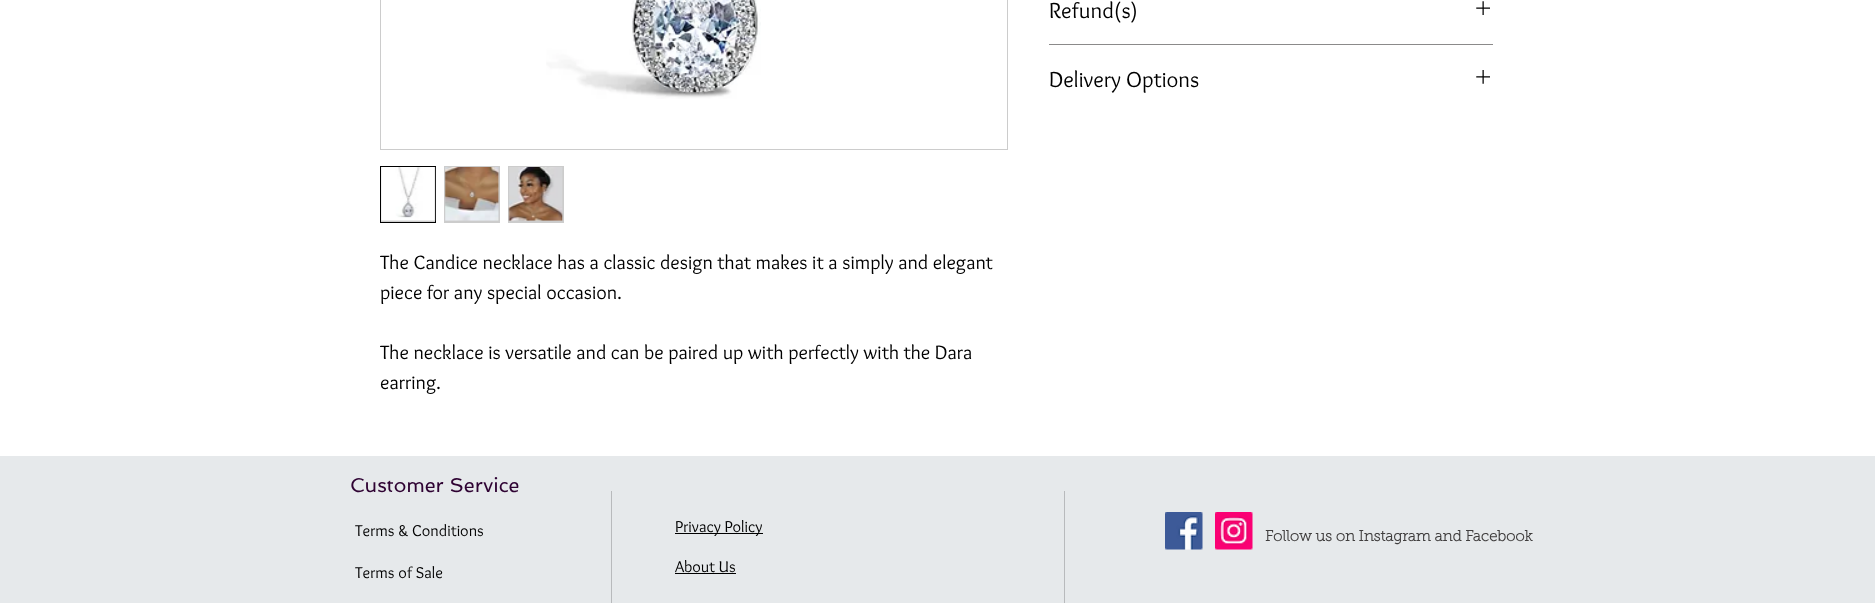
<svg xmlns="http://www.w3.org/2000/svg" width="1875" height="603">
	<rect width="100%" height="100%" fill="#FFFFFF" />
	<rect x="1049" y="44" width="444" height="1" fill="#8B8A8A" />
	<text x="1049" y="18" font-family="Overlock" font-size="22.5" fill="#000000">Refund(s)</text>
	<image x="1476" y="1" width="14" height="14" href="assets/img1.png" />
	<text x="1049" y="87" font-family="Overlock" font-size="22.5" fill="#000000">Delivery Options</text>
	<image x="1476" y="70" width="14" height="14" href="assets/img2.png" />
	<rect x="380.5" y="-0.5" width="627" height="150" fill="none" stroke="#CCCCCC" />
	<image x="546" y="0" width="215" height="99" href="assets/img3.png" />
	<rect x="380.5" y="166.5" width="55" height="56" fill="#CCCCCC" stroke="#000000" />
	<image x="381" y="167" width="55" height="54" href="assets/img4.png" />
	<rect x="444" y="166" width="56" height="57" fill="#CCCCCC" />
	<image x="444" y="167" width="56" height="54" href="assets/img5.png" />
	<rect x="508" y="166" width="56" height="57" fill="#CCCCCC" />
	<image x="508" y="167" width="55" height="54" href="assets/img6.png" />
	<g font-family="Overlock" font-size="20" fill="#000000">
		<text x="380" y="269">The Candice necklace has a classic design that makes it a simply and elegant</text>
		<text x="380" y="299">piece for any special occasion.</text>
		<text x="380" y="359">The necklace is versatile and can be paired up with perfectly with the Dara</text>
		<text x="380" y="389">earring.</text>
	</g>
	<rect x="0" y="456" width="1875" height="147" fill="#E6E9EB" />
	<text x="350" y="492" font-family="Spinnaker" font-size="20" fill="#2F0333">Customer Service</text>
	<text x="355" y="536" font-family="Overlock" font-size="16.25" fill="#000000">Terms &amp; Conditions</text>
	<rect x="611" y="491" width="1" height="112" fill="#B8BABC" />
	<rect x="675" y="533" width="88" height="1" fill="#000000" />
	<text x="675" y="532" font-family="Overlock" font-size="16.25" fill="#000000">Privacy Policy</text>
	<rect x="1064" y="491" width="1" height="112" fill="#B8BABC" />
	<image x="1165" y="512" width="38" height="38" href="assets/img7.png" />
	<image x="1215" y="512" width="38" height="38" href="assets/img8.png" />
	<text x="1265" y="541" font-family="'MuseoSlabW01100'" font-size="15" font-weight="700" fill="#403E3E">Follow us on Instagram and Facebook</text>
	<g font-family="Overlock" font-size="16.25" fill="#000000">
		<text x="355" y="578">Terms of Sale</text>
		<text x="675" y="572">About Us</text>
	</g>
	<rect x="675" y="573" width="61" height="1" fill="#000000" />
</svg>
